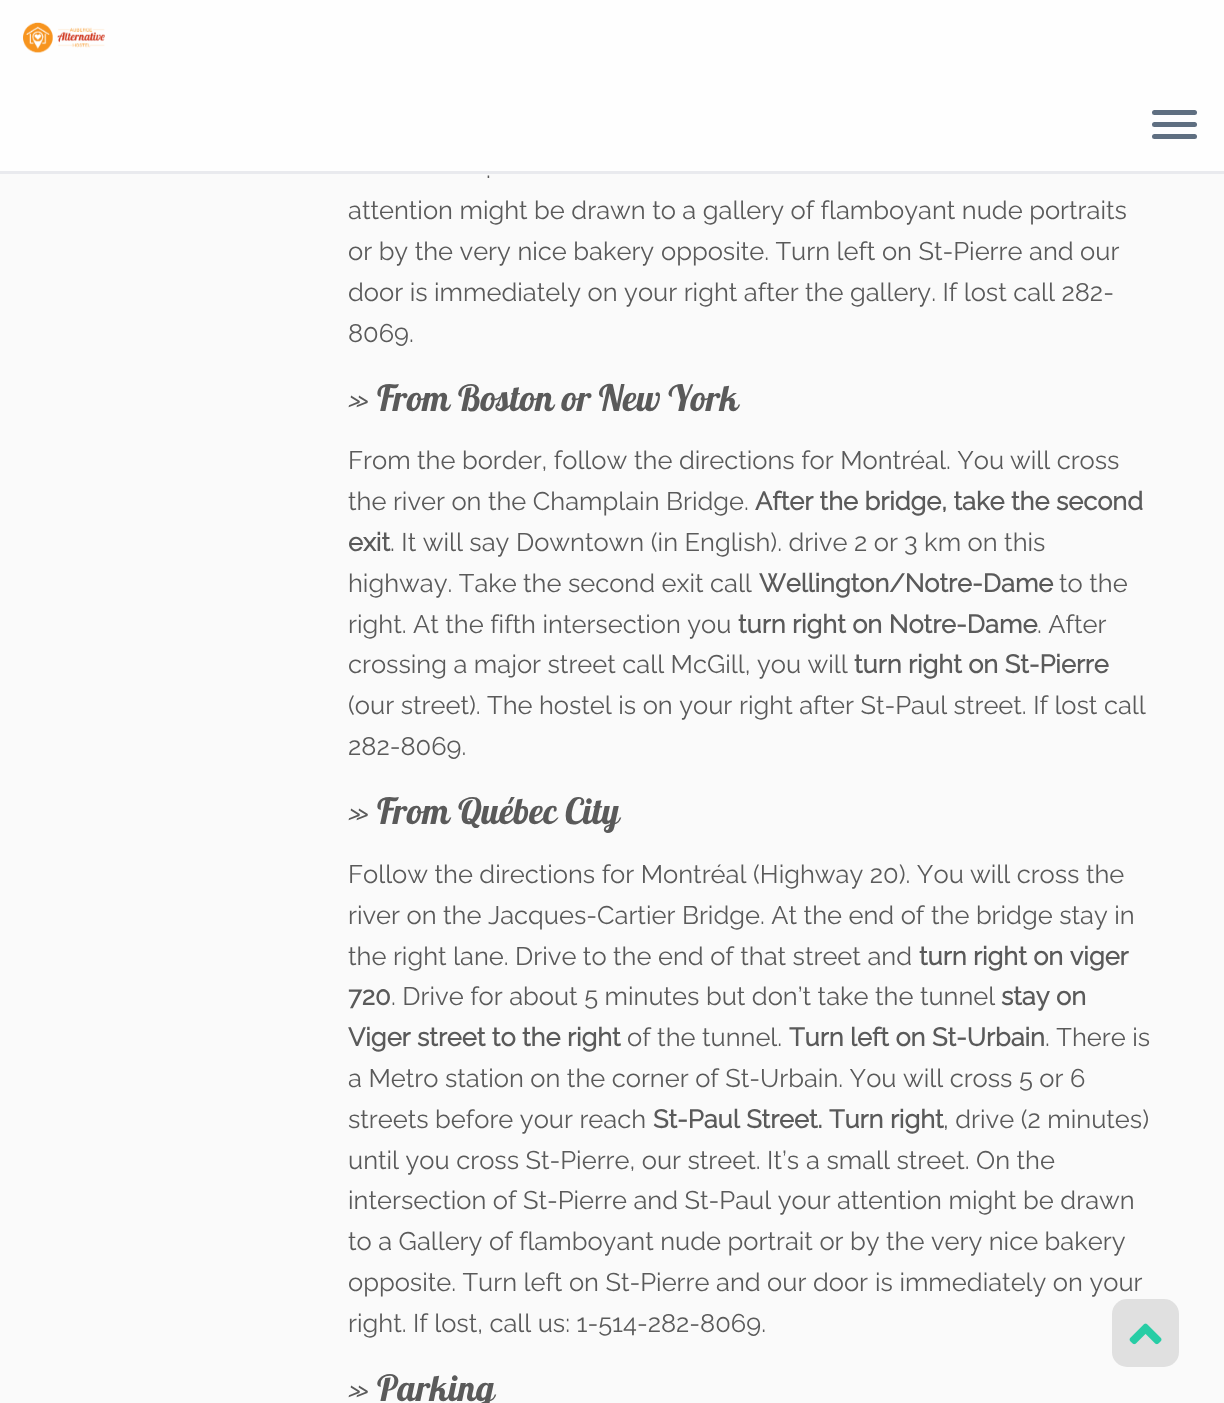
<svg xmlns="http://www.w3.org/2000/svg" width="1224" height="1403">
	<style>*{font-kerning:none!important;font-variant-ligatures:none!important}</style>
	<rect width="100%" height="100%" fill="#FAFAFA" />
	<rect x="0" y="0" width="1224" height="171" fill="#FFFFFF" fill-opacity="0.8" />
	<rect x="0" y="171" width="1224" height="3" fill="#E9EAEE" />
	<image x="23" y="22" width="82" height="31" href="assets/img1.png" />
	<rect x="1152" y="110" width="45" height="5" rx="2.5" fill="#5F6F81" />
	<rect x="1152" y="122" width="45" height="5" rx="2.5" fill="#5F6F81" />
	<rect x="1152" y="134" width="45" height="5" rx="2.5" fill="#5F6F81" />
	<g font-family="Raleway" font-size="25.5" font-weight="100" fill="#5A5A5A">
		<text x="486" y="178">.</text>
		<text x="348" y="219">attention might be drawn to a gallery of flamboyant nude portraits</text>
		<text x="348" y="260">or by the very nice bakery</text>
		<text x="661" y="260">opposite. Turn left on St-Pierre and our</text>
		<text x="348" y="301">door is immediately on your right after</text>
		<text x="805" y="301">the gallery. If lost call 282-</text>
		<text x="348" y="342">8069.</text>
	</g>
	<text x="348" y="411" font-family="Lobster" font-size="36" fill="#5A5A5A">» From Boston or New York</text>
	<g font-family="Raleway" font-size="25.5" font-weight="100" fill="#5A5A5A">
		<text x="348" y="469">From the border, follow</text>
		<text x="634" y="469">the directions for Montréal. You</text>
		<text x="1010" y="469">will cross</text>
		<text x="348" y="510">the river on the Champlain Bridge.</text>
	</g>
	<g font-family="Raleway" font-size="25.5" font-weight="700" fill="#5A5A5A">
		<text x="755" y="510">After the bridge, take the second</text>
		<text x="348" y="551">exit</text>
	</g>
	<g font-family="Raleway" font-size="25.5" font-weight="100" fill="#5A5A5A">
		<text x="390" y="551">. It will say Downtown (in English). drive 2 or</text>
		<text x="904" y="551">3 km on this</text>
		<text x="348" y="592">highway. Take</text>
		<text x="523" y="592">the second exit call</text>
	</g>
	<text x="759" y="592" font-family="Raleway" font-size="25.5" font-weight="700" fill="#5A5A5A">Wellington/Notre-Dame</text>
	<g font-family="Raleway" font-size="25.5" font-weight="100" fill="#5A5A5A">
		<text x="1059" y="592">to the</text>
		<text x="348" y="633">right. At the fifth intersection you</text>
	</g>
	<text x="738" y="633" font-family="Raleway" font-size="25.5" font-weight="700" fill="#5A5A5A">turn right on Notre-Dame</text>
	<g font-family="Raleway" font-size="25.5" font-weight="100" fill="#5A5A5A">
		<text x="1037" y="633">. After</text>
		<text x="348" y="673">crossing a major street call McGill, you will</text>
	</g>
	<text x="854" y="673" font-family="Raleway" font-size="25.5" font-weight="700" fill="#5A5A5A">turn right on St-Pierre</text>
	<g font-family="Raleway" font-size="25.5" font-weight="100" fill="#5A5A5A">
		<text x="348" y="714">(our street). The hostel is on your</text>
		<text x="739" y="714">right after St-Paul street. If lost call</text>
		<text x="348" y="755">282-8069.</text>
	</g>
	<text x="348" y="824" font-family="Lobster" font-size="36" fill="#5A5A5A">» From Québec City</text>
	<g font-family="Raleway" font-size="25.5" font-weight="100" fill="#5A5A5A">
		<text x="348" y="883">Follow the directions for Montréal</text>
		<text x="753" y="883">(Highway 20). You</text>
		<text x="970" y="883">will cross the</text>
		<text x="348" y="924">river on the Jacques-Cartier Bridge. At the end of</text>
		<text x="931" y="924">the bridge stay in</text>
		<text x="348" y="965">the right lane. Drive to the end of that street and</text>
	</g>
	<g font-family="Raleway" font-size="25.5" font-weight="700" fill="#5A5A5A">
		<text x="919" y="965">turn right on viger</text>
		<text x="348" y="1005">720</text>
	</g>
	<text x="391" y="1005" font-family="Raleway" font-size="25.5" font-weight="100" fill="#5A5A5A">. Drive for about 5 minutes but don’t take the tunnel</text>
	<g font-family="Raleway" font-size="25.5" font-weight="700" fill="#5A5A5A">
		<text x="1001" y="1005">stay on</text>
		<text x="348" y="1046">Viger street to the right</text>
	</g>
	<text x="627" y="1046" font-family="Raleway" font-size="25.5" font-weight="100" fill="#5A5A5A">of the tunnel.</text>
	<text x="789" y="1046" font-family="Raleway" font-size="25.5" font-weight="700" fill="#5A5A5A">Turn left on St-Urbain</text>
	<g font-family="Raleway" font-size="25.5" font-weight="100" fill="#5A5A5A">
		<text x="1045" y="1046">. There is</text>
		<text x="348" y="1087">a Metro station on the corner of St-Urbain. You</text>
		<text x="903" y="1087">will cross 5 or 6</text>
		<text x="348" y="1128">streets before your reach</text>
	</g>
	<text x="653" y="1128" font-family="Raleway" font-size="25.5" font-weight="700" fill="#5A5A5A">St-Paul Street. Turn right</text>
	<g font-family="Raleway" font-size="25.5" font-weight="100" fill="#5A5A5A">
		<text x="943" y="1128">, drive (2 minutes)</text>
		<text x="348" y="1169">until you cross St-Pierre, our street. It’s</text>
		<text x="806" y="1169">a small street. On the</text>
		<text x="348" y="1209">intersection of St-Pierre and St-Paul your</text>
		<text x="837" y="1209">attention might be drawn</text>
		<text x="348" y="1250">to a Gallery of flamboyant nude portrait or by</text>
		<text x="886" y="1250">the very nice bakery</text>
		<text x="348" y="1291">opposite. Turn left on St-Pierre and our door</text>
		<text x="875" y="1291">is immediately on your</text>
		<text x="348" y="1332">right. If lost, call us: 1-514-282-8069.</text>
	</g>
	<text x="348" y="1401" font-family="Lobster" font-size="36" fill="#5A5A5A">» Parking</text>
	<rect x="1112" y="1299" width="67" height="68" rx="15" fill="#E0E0E0" />
	<image x="1129" y="1323" width="33" height="22" href="assets/img2.png" />
</svg>
